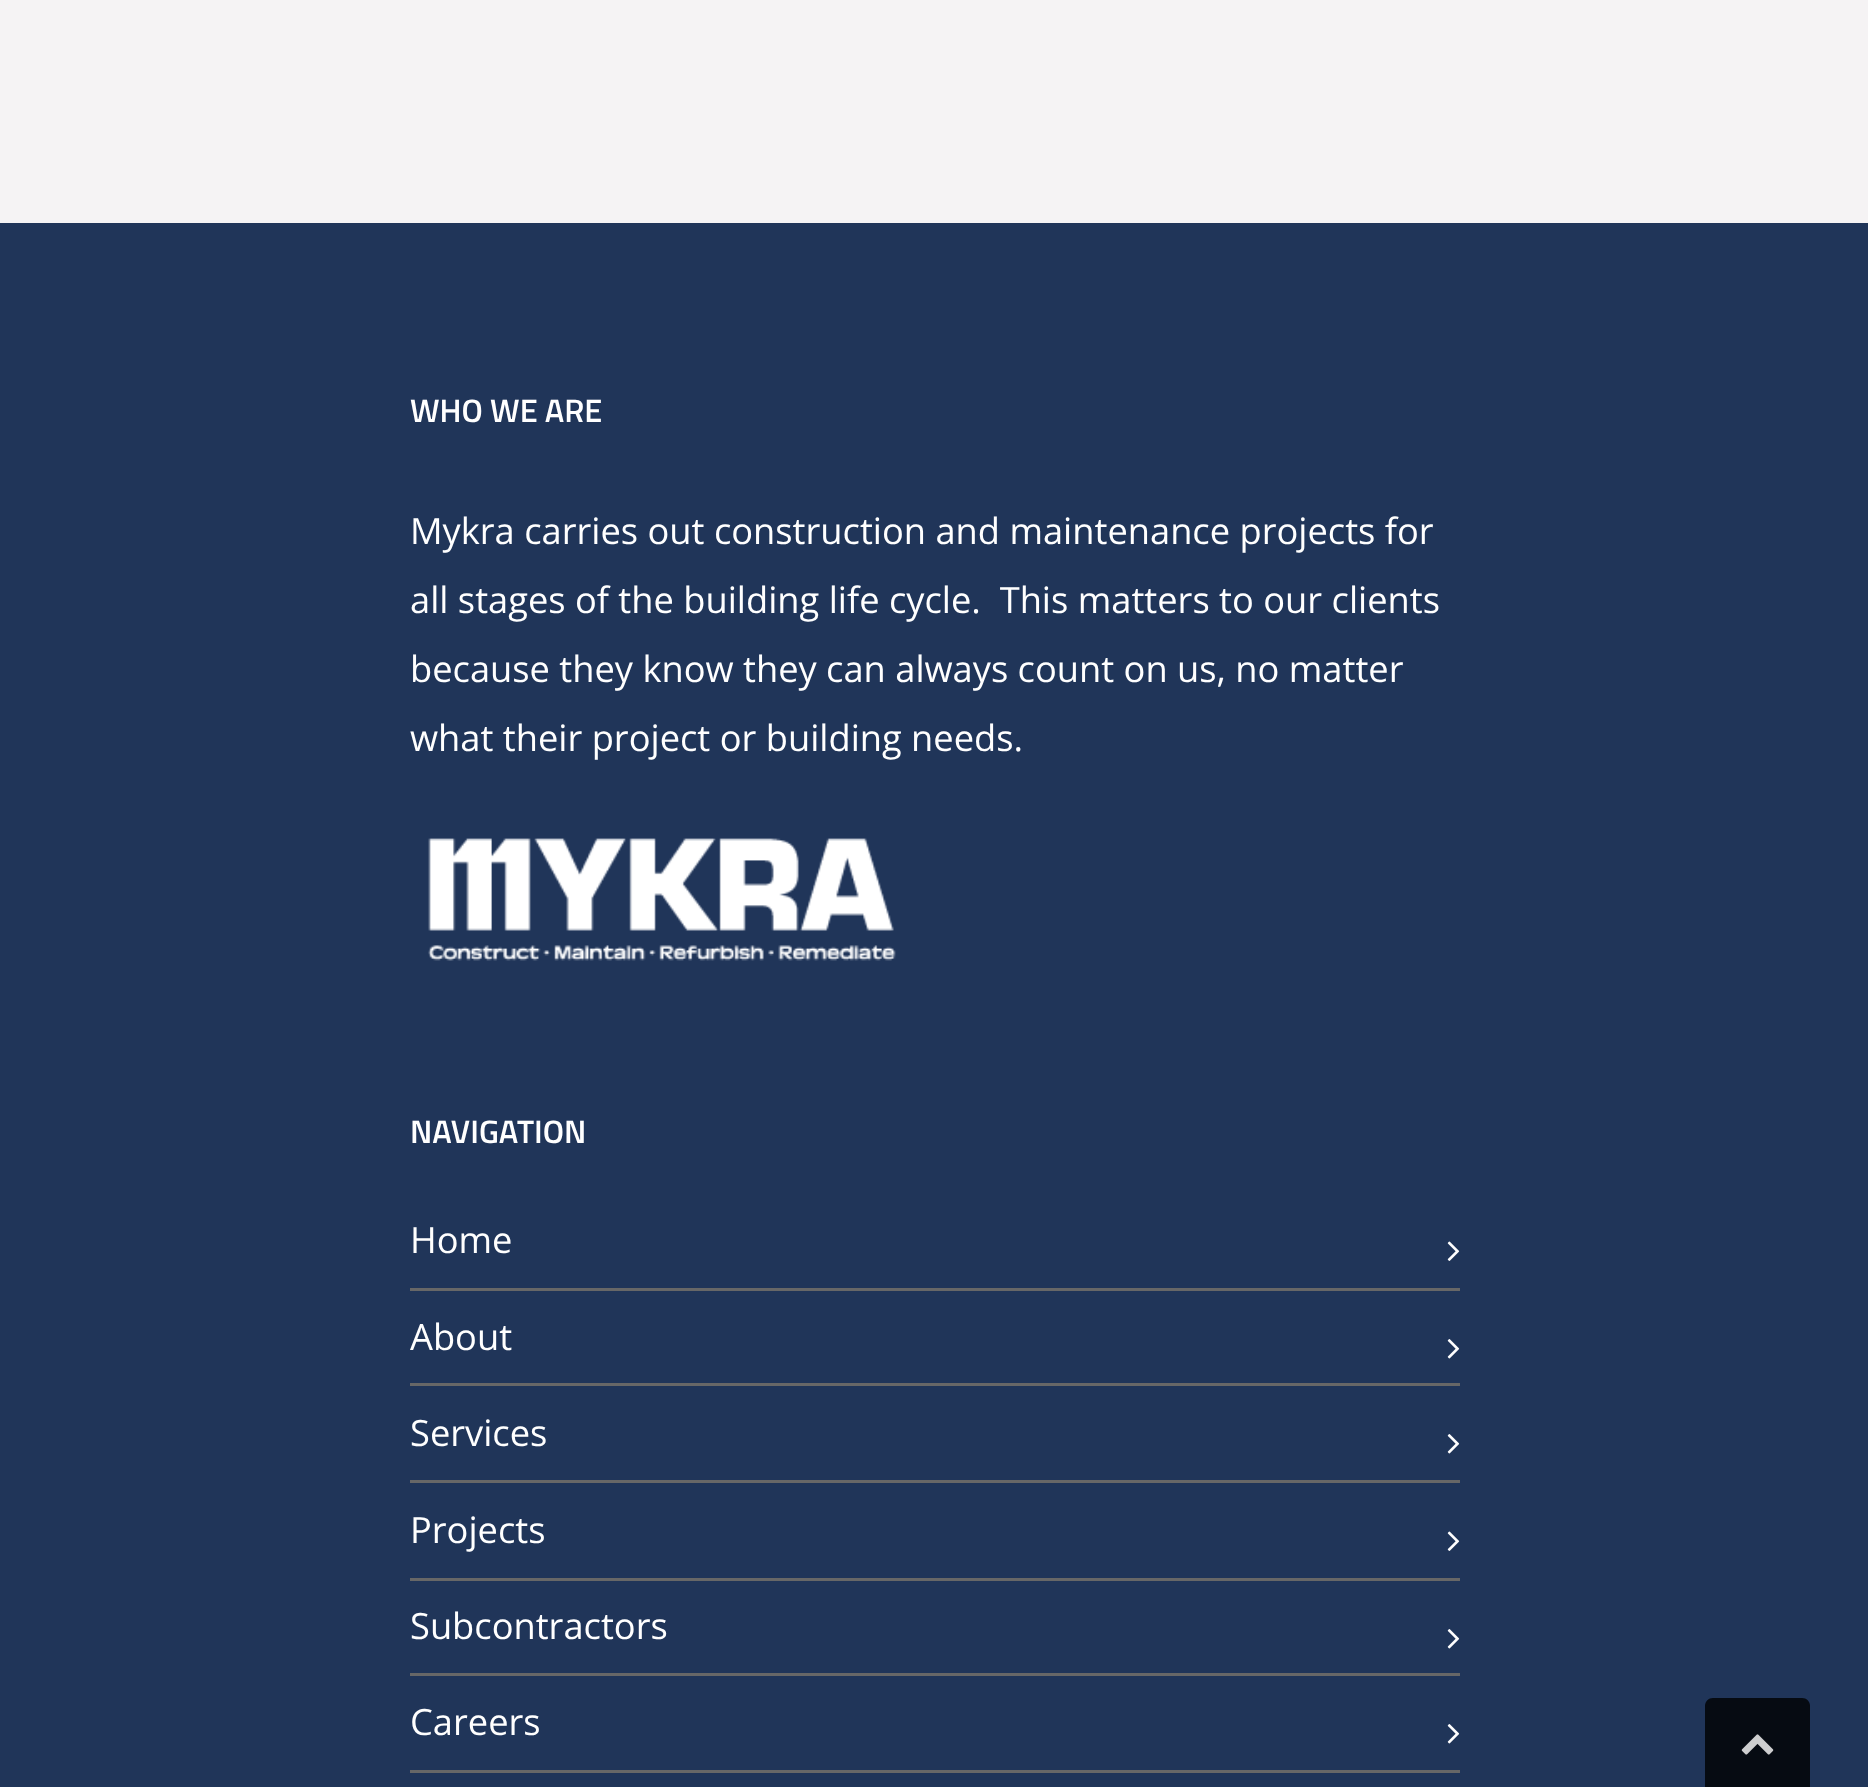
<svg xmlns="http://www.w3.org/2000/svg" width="1868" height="1787">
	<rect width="100%" height="100%" fill="#203559" />
	<rect x="0" y="0" width="1868" height="223" fill="#F5F3F4" />
	<text x="410" y="422" font-family="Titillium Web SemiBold" font-size="32.5" font-weight="600" fill="#FFFFFF">WHO WE ARE</text>
	<g font-family="Open Sans" font-size="36.25" fill="#FFFFFF">
		<text x="410" y="544">Mykra carries out construction and maintenance projects for</text>
		<text x="410" y="613" xml:space="preserve">all stages of the building life cycle.  This matters to our clients</text>
		<text x="410" y="682">because they know they can always count on us, no matter</text>
		<text x="410" y="751">what their project or building needs.</text>
	</g>
	<image x="428" y="838" width="468" height="123" href="assets/img1.png" />
	<text x="410" y="1143" font-family="Titillium Web SemiBold" font-size="32.5" font-weight="600" fill="#FFFFFF">NAVIGATION</text>
	<rect x="410" y="1288" width="1050" height="3" fill="#676767" />
	<text x="410" y="1253" font-family="Open Sans" font-size="36.25" fill="#FFFFFF">Home</text>
	<image x="1447" y="1241" width="13" height="20" href="assets/img2.png" />
	<rect x="410" y="1383" width="1050" height="3" fill="#676767" />
	<text x="410" y="1350" font-family="Open Sans" font-size="36.25" fill="#FFFFFF">About</text>
	<image x="1447" y="1339" width="13" height="20" href="assets/img3.png" />
	<rect x="410" y="1480" width="1050" height="3" fill="#676767" />
	<text x="410" y="1446" font-family="Open Sans" font-size="36.25" fill="#FFFFFF">Services</text>
	<image x="1447" y="1434" width="13" height="20" href="assets/img3.png" />
	<rect x="410" y="1578" width="1050" height="3" fill="#676767" />
	<text x="410" y="1543" font-family="Open Sans" font-size="36.25" fill="#FFFFFF">Projects</text>
	<image x="1447" y="1531" width="13" height="20" href="assets/img2.png" />
	<rect x="410" y="1673" width="1050" height="3" fill="#676767" />
	<text x="410" y="1639" font-family="Open Sans" font-size="36.25" fill="#FFFFFF">Subcontractors</text>
	<image x="1447" y="1629" width="13" height="20" href="assets/img3.png" />
	<rect x="410" y="1770" width="1050" height="3" fill="#676767" />
	<text x="410" y="1735" font-family="Open Sans" font-size="36.25" fill="#FFFFFF">Careers</text>
	<image x="1447" y="1724" width="13" height="20" href="assets/img3.png" />
	<path d="M1713 1698H1802C1806.5 1698 1810 1701.5 1810 1706V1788H1705V1706C1705 1701.5 1708.5 1698 1713 1698Z" fill="#060B12" />
	<image x="1741" y="1734" width="33" height="21" href="assets/img4.png" />
</svg>
